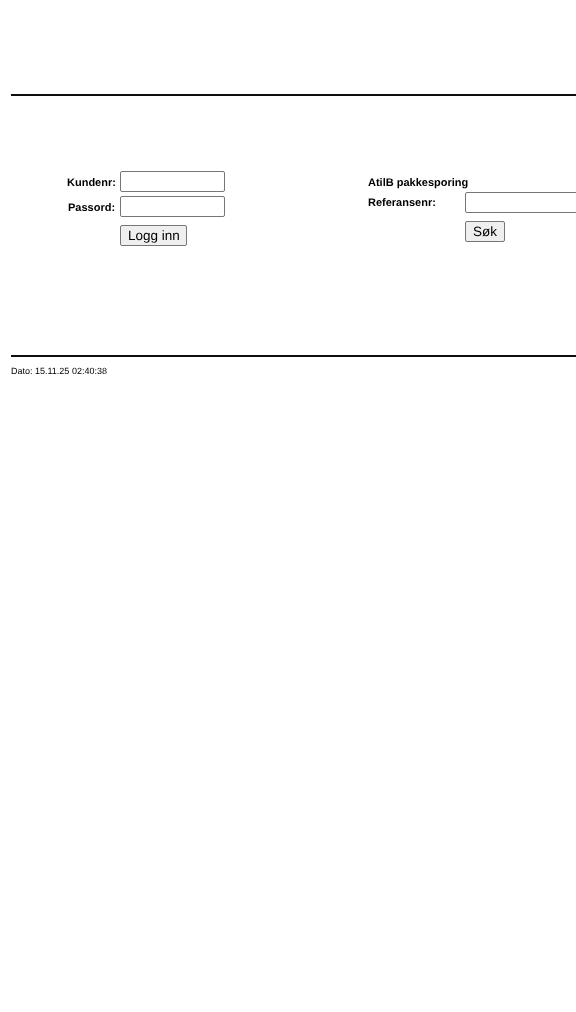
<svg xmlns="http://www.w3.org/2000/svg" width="576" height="1012">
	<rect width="100%" height="100%" fill="#FFFFFF" />
	<rect x="11" y="94" width="565" height="2" fill="#0E0E0E" />
	<text x="67" y="186" font-family="Liberation Sans" font-size="11" font-weight="700" fill="#000000">Kundenr:</text>
	<rect x="120.5" y="171.5" width="104" height="20" rx="1.5" fill="none" stroke="#767676" />
	<text x="68" y="211" font-family="Liberation Sans" font-size="11" font-weight="700" fill="#000000">Passord:</text>
	<rect x="120.5" y="196.5" width="104" height="20" rx="1.5" fill="none" stroke="#767676" />
	<rect x="120.5" y="225.5" width="66" height="20" rx="1.5" fill="#EFEFEF" stroke="#767676" />
	<text x="128" y="240" font-family="Liberation Sans" font-size="13.5" fill="#000000">Logg inn</text>
	<g font-family="Liberation Sans" font-size="11" font-weight="700" fill="#000000">
		<text x="368" y="186">AtilB pakkesporing</text>
		<text x="368" y="206">Referansenr:</text>
	</g>
	<rect x="465.5" y="192.5" width="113" height="20" rx="1.5" fill="none" stroke="#767676" />
	<rect x="465.5" y="221.5" width="39" height="20" rx="1.5" fill="#EFEFEF" stroke="#767676" />
	<text x="473" y="236" font-family="Liberation Sans" font-size="13.5" fill="#000000">Søk</text>
	<rect x="11" y="355" width="565" height="2" fill="#0E0E0E" />
	<text x="11" y="374" font-family="Liberation Sans" font-size="9" fill="#000000">Dato: 15.11.25 02:40:38</text>
</svg>
